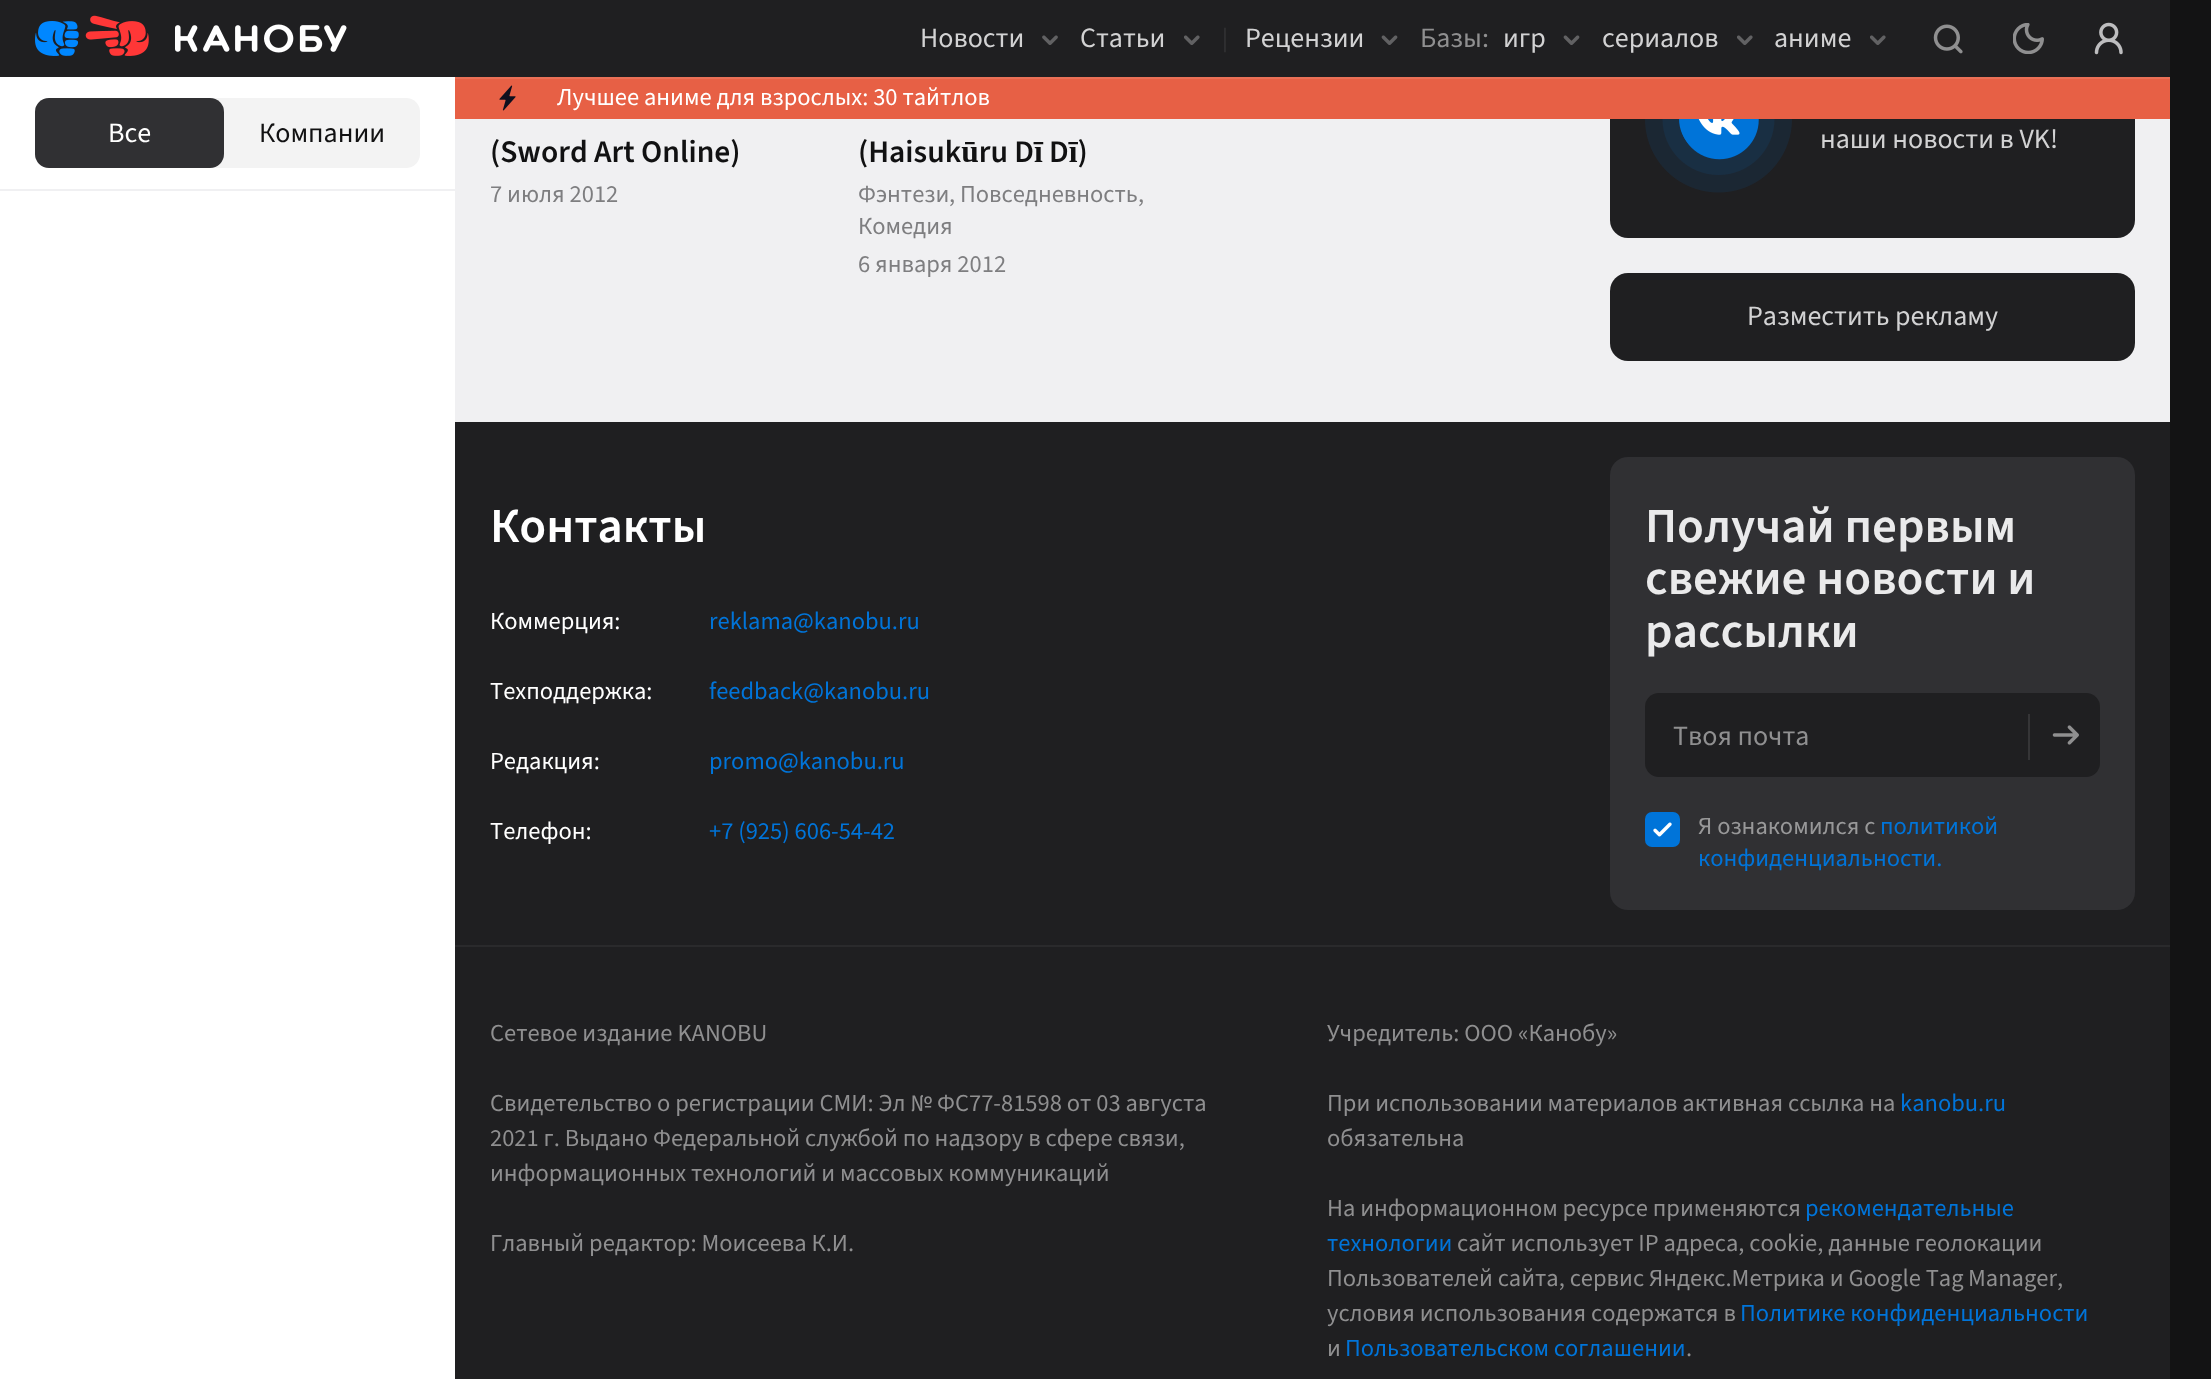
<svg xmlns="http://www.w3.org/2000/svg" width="2211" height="1379">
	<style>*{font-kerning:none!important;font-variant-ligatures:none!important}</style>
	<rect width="100%" height="100%" fill="#131314" />
	<rect x="455" y="119" width="1715" height="303" fill="#F0F0F2" />
	<rect x="1610" y="7" width="525" height="231" rx="18" fill="#1F1F21" />
	<rect x="455" y="77" width="1715" height="42" fill="#E76045" />
	<rect x="455" y="77" width="1715" height="2" fill="#FFFFFF" fill-opacity="0.1" />
	<rect x="0" y="0" width="2170" height="77" fill="#1F1F21" />
	<image x="35" y="15" width="312" height="41" href="assets/img1.png" />
	<text x="920" y="47" font-family="'Source Sans 3'" font-size="28" fill="#D2D2D3">Новости</text>
	<image x="1042" y="35" width="16" height="10" href="assets/img2.png" />
	<text x="1080" y="47" font-family="'Source Sans 3'" font-size="28" fill="#D2D2D3">Статьи</text>
	<image x="1184" y="35" width="16" height="10" href="assets/img3.png" />
	<text x="1222" y="46" font-family="'Source Sans 3'" font-size="24.5" fill="#353537">|</text>
	<text x="1245" y="47" font-family="'Source Sans 3'" font-size="28" fill="#D2D2D3">Рецензии</text>
	<image x="1381" y="35" width="17" height="10" href="assets/img4.png" />
	<text x="1420" y="47" font-family="'Source Sans 3'" font-size="28" fill="#8F8F90">Базы:</text>
	<text x="1503" y="47" font-family="'Source Sans 3'" font-size="28" fill="#D2D2D3">игр</text>
	<image x="1563" y="35" width="17" height="10" href="assets/img4.png" />
	<text x="1602" y="47" font-family="'Source Sans 3'" font-size="28" fill="#D2D2D3">сериалов</text>
	<image x="1737" y="35" width="16" height="10" href="assets/img3.png" />
	<text x="1774" y="47" font-family="'Source Sans 3'" font-size="28" fill="#D2D2D3">аниме</text>
	<image x="1870" y="35" width="16" height="10" href="assets/img3.png" />
	<image x="1933" y="24" width="30" height="30" href="assets/img5.png" />
	<image x="2013" y="23" width="31" height="31" href="assets/img6.png" />
	<image x="2094" y="22" width="29" height="33" href="assets/img7.png" />
	<image x="499" y="85" width="17" height="26" href="assets/img8.png" />
	<text x="557" y="105" font-family="'Source Sans 3'" font-size="24.5" fill="#FFFFFF">Лучшее аниме для взрослых: 30 тайтлов</text>
	<rect x="0" y="77" width="455" height="1302" fill="#FFFFFF" />
	<rect x="0" y="189" width="455" height="2" fill="#F0F0F2" />
	<rect x="35" y="98" width="385" height="70" rx="14" fill="#F3F3F3" />
	<rect x="35" y="98" width="189" height="70" rx="14" fill="#303033" />
	<text x="108" y="142" font-family="'Source Sans 3'" font-size="28" fill="#FFFFFF">Все</text>
	<text x="259" y="142" font-family="'Source Sans 3'" font-size="28" fill="#111112">Компании</text>
	<text x="490" y="162" font-family="'Source Sans 3'" font-size="31.5" font-weight="600" fill="#111112">(Sword Art Online)</text>
	<text x="490" y="202" font-family="'Source Sans 3'" font-size="24.5" fill="#7E7E80">7 июля 2012</text>
	<text x="858" y="162" font-family="'Source Sans 3'" font-size="31.5" font-weight="600" fill="#111112">(Haisukūru Dī Dī)</text>
	<g font-family="'Source Sans 3'" font-size="24.5" fill="#7E7E80">
		<text x="858" y="202">Фэнтези</text>
		<text x="949" y="202">,</text>
		<text x="960" y="202">Повседневность</text>
		<text x="1138" y="202">,</text>
		<text x="858" y="234">Комедия</text>
		<text x="858" y="272">6 января 2012</text>
	</g>
	<image x="1645" y="119" width="147" height="74" href="assets/img9.png" />
	<text x="1820" y="148" font-family="'Source Sans 3'" font-size="28" fill="#D2D2D3">наши новости в VK!</text>
	<rect x="1610" y="273" width="525" height="88" rx="18" fill="#1F1F21" />
	<text x="1747" y="325" font-family="'Source Sans 3'" font-size="28" fill="#D2D2D3">Разместить рекламу</text>
	<rect x="455" y="422" width="1715" height="957" fill="#1F1F21" />
	<rect x="455" y="945" width="1715" height="2" fill="#2A2A2C" />
	<text x="490" y="542" font-family="'Source Sans 3'" font-size="49" font-weight="600" fill="#FFFFFF">Контакты</text>
	<text x="490" y="629" font-family="'Source Sans 3'" font-size="24.5" fill="#FFFFFF">Коммерция:</text>
	<text x="709" y="629" font-family="'Source Sans 3'" font-size="24.5" fill="#0074D9">reklama@kanobu.ru</text>
	<text x="490" y="699" font-family="'Source Sans 3'" font-size="24.5" fill="#FFFFFF">Техподдержка:</text>
	<text x="709" y="699" font-family="'Source Sans 3'" font-size="24.5" fill="#0074D9">feedback@kanobu.ru</text>
	<text x="490" y="769" font-family="'Source Sans 3'" font-size="24.5" fill="#FFFFFF">Редакция:</text>
	<text x="709" y="769" font-family="'Source Sans 3'" font-size="24.5" fill="#0074D9">promo@kanobu.ru</text>
	<text x="490" y="839" font-family="'Source Sans 3'" font-size="24.5" fill="#FFFFFF">Телефон:</text>
	<text x="709" y="839" font-family="'Source Sans 3'" font-size="24.5" fill="#0074D9">+7 (925) 606-54-42</text>
	<rect x="1610" y="457" width="525" height="453" rx="18" fill="#303033" />
	<g font-family="'Source Sans 3'" font-size="49" font-weight="600" fill="#EAEAEB">
		<text x="1645" y="542">Получай первым</text>
		<text x="1645" y="594">свежие новости и</text>
		<text x="1645" y="647">рассылки</text>
	</g>
	<rect x="1645" y="693" width="455" height="84" rx="14" fill="#1F1F21" />
	<text x="1673" y="745" font-family="'Source Sans 3'" font-size="28" fill="#8F8F90">Твоя почта</text>
	<rect x="2028" y="714" width="2" height="46" fill="#353537" />
	<image x="2052" y="725" width="27" height="20" href="assets/img10.png" />
	<rect x="1645" y="812" width="35" height="35" rx="7" fill="#0074D9" />
	<image x="1653" y="822" width="19" height="15" href="assets/img11.png" />
	<text x="1698" y="834" font-family="'Source Sans 3'" font-size="24.5" fill="#989899">Я ознакомился с</text>
	<g font-family="'Source Sans 3'" font-size="24.5" fill="#0074D9">
		<text x="1880" y="834">политикой</text>
		<text x="1698" y="866">конфиденциальности.</text>
	</g>
	<g font-family="'Source Sans 3'" font-size="24.5" fill="#8F8F90">
		<text x="490" y="1041">Сетевое издание KANOBU</text>
		<text x="490" y="1111">Свидетельство о регистрации СМИ: Эл № ФС77-81598 от 03 августа</text>
		<text x="490" y="1146">2021 г. Выдано Федеральной службой по надзору в сфере связи,</text>
		<text x="490" y="1181">информационных технологий и массовых коммуникаций</text>
		<text x="490" y="1251">Главный редактор: Моисеева К.И.</text>
		<text x="1327" y="1041">Учредитель: ООО «Канобу»</text>
		<text x="1327" y="1111">При использовании материалов активная ссылка на</text>
	</g>
	<text x="1900" y="1111" font-family="'Source Sans 3'" font-size="24.5" fill="#0074D9">kanobu.ru</text>
	<g font-family="'Source Sans 3'" font-size="24.5" fill="#8F8F90">
		<text x="1327" y="1146">обязательна</text>
		<text x="1327" y="1216">На информационном ресурсе применяются</text>
	</g>
	<g font-family="'Source Sans 3'" font-size="24.5" fill="#0074D9">
		<text x="1805" y="1216">рекомендательные</text>
		<text x="1327" y="1251">технологии</text>
	</g>
	<g font-family="'Source Sans 3'" font-size="24.5" fill="#8F8F90">
		<text x="1457" y="1251">сайт использует IP адреса, cookie, данные геолокации</text>
		<text x="1327" y="1286">Пользователей сайта, сервис Яндекс.Метрика и Google Tag</text>
		<text x="1968" y="1286">Manager,</text>
		<text x="1327" y="1321">условия использования содержатся в</text>
	</g>
	<text x="1740" y="1321" font-family="'Source Sans 3'" font-size="24.5" fill="#0074D9">Политике конфиденциальности</text>
	<text x="1327" y="1356" font-family="'Source Sans 3'" font-size="24.5" fill="#8F8F90">и</text>
	<text x="1345" y="1356" font-family="'Source Sans 3'" font-size="24.5" fill="#0074D9">Пользовательском соглашении</text>
	<text x="1686" y="1356" font-family="'Source Sans 3'" font-size="24.5" fill="#8F8F90">.</text>
</svg>
